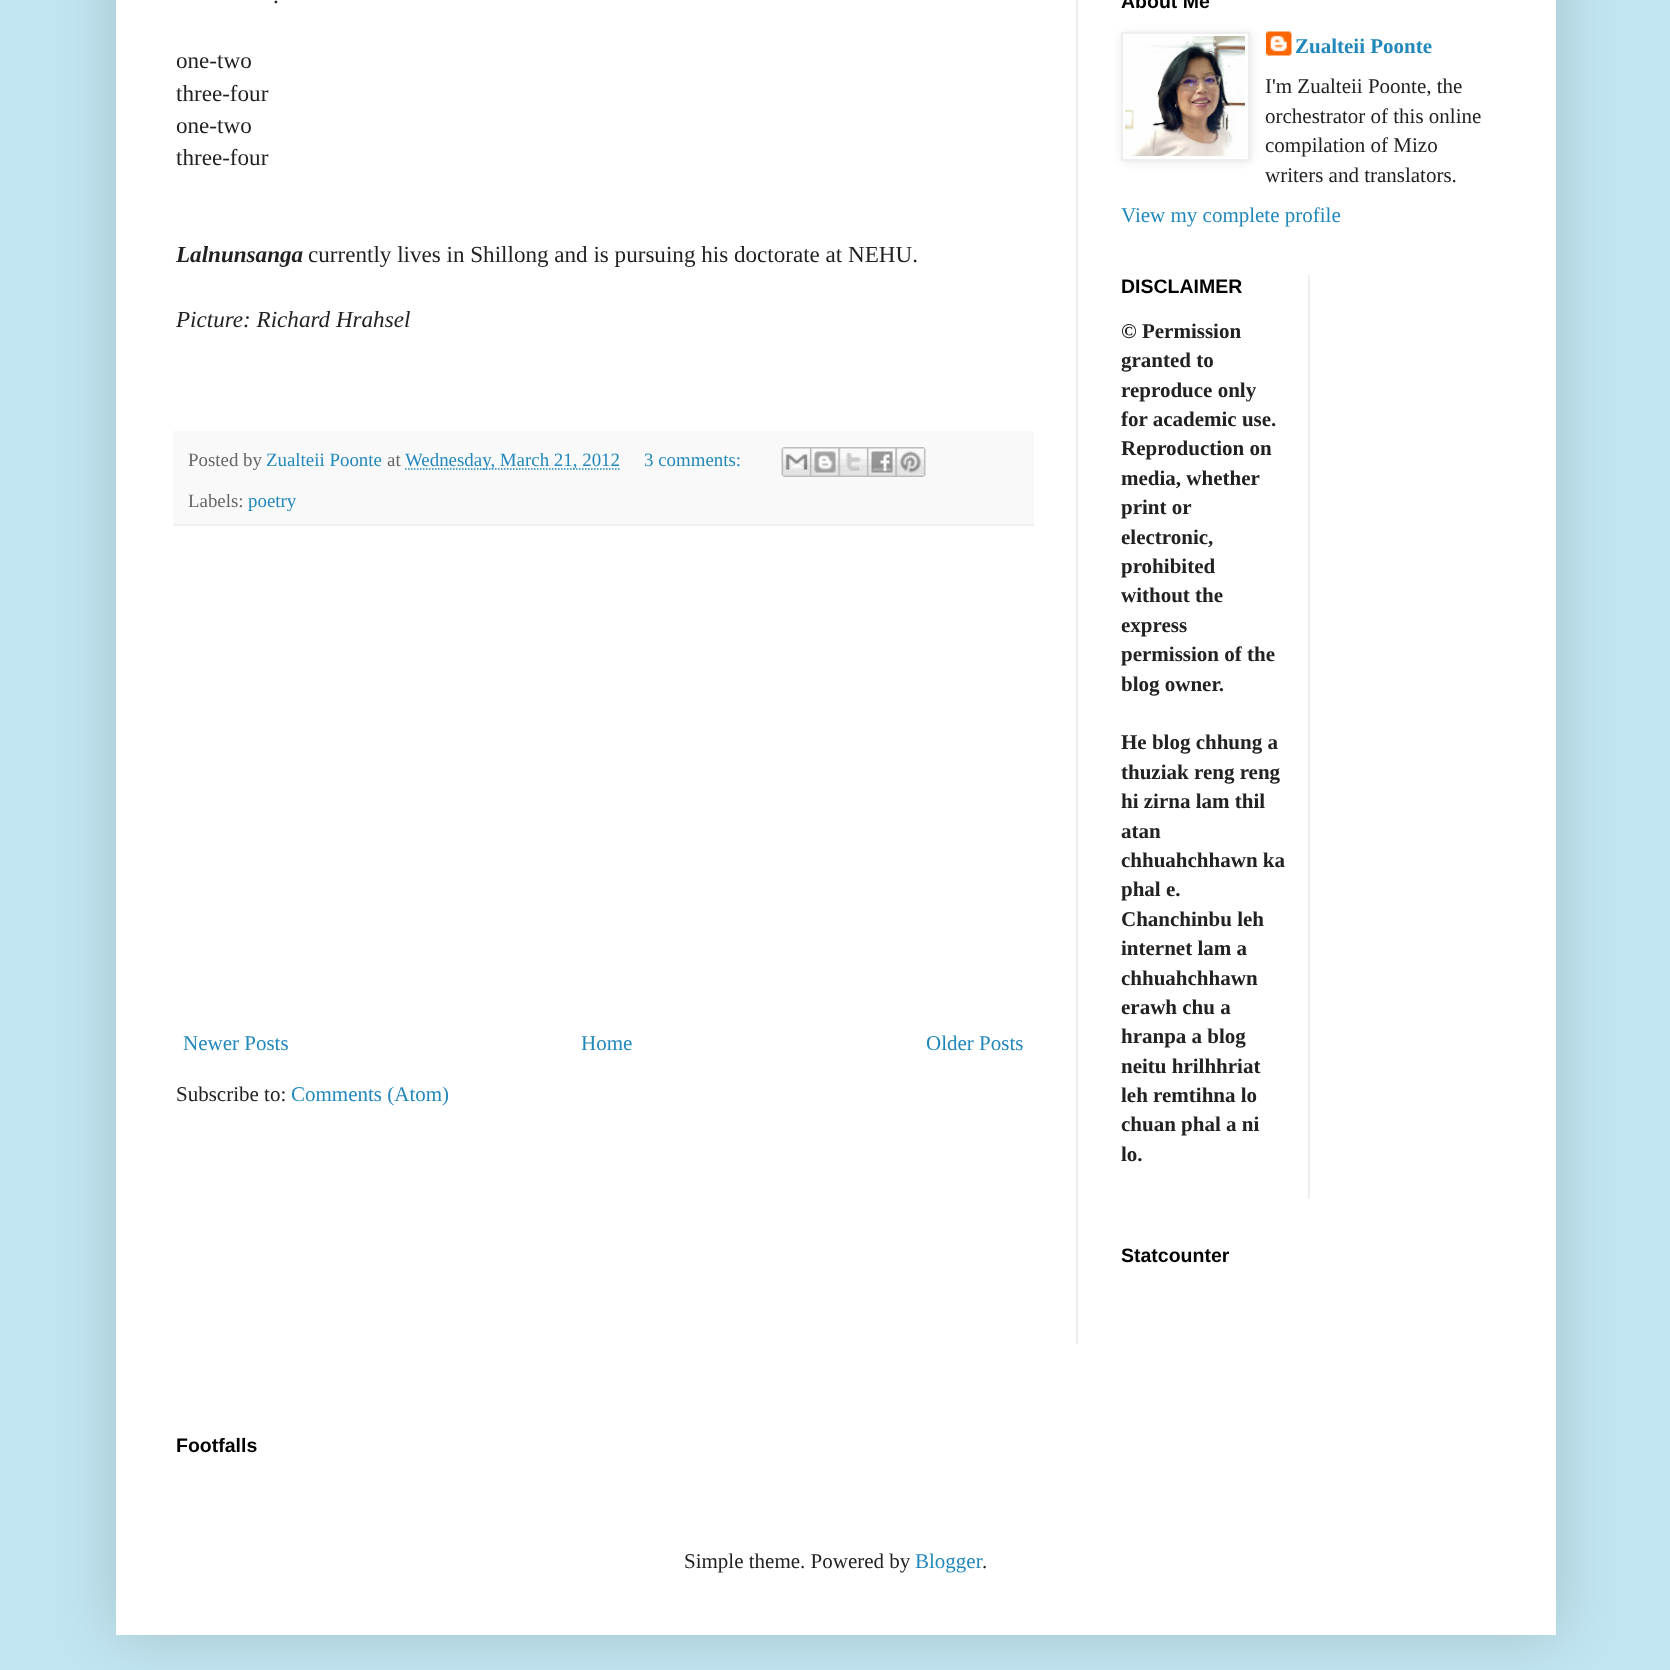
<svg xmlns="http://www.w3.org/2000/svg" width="1670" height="1670">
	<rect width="100%" height="100%" fill="#C1E5F1" />
	<rect x="116" y="-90" width="1440" height="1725" fill="#000000" fill-opacity="0.15" filter="blur(30px)" />
	<rect x="116" y="0" width="1440" height="1635" fill="#FFFFFF" />
	<g font-family="Liberation Serif" font-size="23.1" fill="#222222">
		<text x="273" y="3">.</text>
		<text x="176" y="68">one-two</text>
		<text x="176" y="101">three-four</text>
		<text x="176" y="133">one-two</text>
		<text x="176" y="165">three-four</text>
	</g>
	<text x="176" y="262" font-family="Liberation Serif" font-size="23.1" font-weight="700" font-style="italic" fill="#222222">Lalnunsanga</text>
	<text x="308" y="262" font-family="Liberation Serif" font-size="23.1" fill="#222222">currently lives in Shillong and is pursuing his doctorate at NEHU.</text>
	<text x="176" y="327" font-family="Liberation Serif" font-size="23.1" font-style="italic" fill="#222222">Picture: Richard Hrahsel</text>
	<rect x="173" y="431" width="861" height="93" fill="#F9F9F9" />
	<rect x="173" y="524" width="861" height="2" fill="#EEEEEE" />
	<text x="188" y="466" font-family="Liberation Serif" font-size="18.9" fill="#666666">Posted by</text>
	<text x="266" y="466" font-family="Liberation Serif" font-size="18.9" fill="#2288BB">Zualteii Poonte</text>
	<text x="387" y="466" font-family="Liberation Serif" font-size="18.9" fill="#666666">at</text>
	<path d="M405 469H620" fill="none" stroke="#2288BB" stroke-width="1.5" stroke-dasharray="1.5 1.5" />
	<g font-family="Liberation Serif" font-size="18.9" fill="#2288BB">
		<text x="405" y="466">Wednesday, March 21, 2012</text>
		<text x="644" y="466">3 comments:</text>
	</g>
	<image x="781" y="447" width="29" height="30" href="assets/img1.png" />
	<image x="810" y="447" width="29" height="30" href="assets/img2.png" />
	<image x="838" y="447" width="29" height="30" href="assets/img3.png" />
	<image x="867" y="447" width="29" height="30" href="assets/img4.png" />
	<image x="895" y="447" width="31" height="30" href="assets/img5.png" />
	<text x="188" y="507" font-family="Liberation Serif" font-size="18.9" fill="#666666">Labels:</text>
	<text x="248" y="507" font-family="Liberation Serif" font-size="18.9" fill="#2288BB">poetry</text>
	<g font-family="Liberation Serif" font-size="21" fill="#2288BB">
		<text x="183" y="1050">Newer Posts</text>
		<text x="581" y="1050">Home</text>
		<text x="926" y="1050">Older Posts</text>
	</g>
	<text x="176" y="1101" font-family="Liberation Serif" font-size="21" fill="#222222">Subscribe to:</text>
	<text x="291" y="1101" font-family="Liberation Serif" font-size="21" fill="#2288BB">Comments (Atom)</text>
	<text x="1121" y="8" font-family="Liberation Sans" font-size="19.5" font-weight="700" fill="#000000">About Me</text>
	<rect x="1122" y="33" width="129" height="129" fill="#000000" fill-opacity="0.1" filter="blur(4px)" />
	<rect x="1122" y="33" width="127" height="127" fill="#FFFFFF" stroke="#EEEEEE" stroke-width="2" />
	<image x="1125" y="36" width="120" height="120" href="assets/img6.png" />
	<image x="1266" y="31" width="26" height="25" href="assets/img7.png" />
	<text x="1295" y="53" font-family="Liberation Serif" font-size="21" font-weight="700" fill="#2288BB">Zualteii Poonte</text>
	<g font-family="Liberation Serif" font-size="21" fill="#222222">
		<text x="1265" y="93">I'm Zualteii Poonte, the</text>
		<text x="1265" y="123">orchestrator of this online</text>
		<text x="1265" y="152">compilation of Mizo</text>
		<text x="1265" y="182">writers and translators.</text>
	</g>
	<text x="1121" y="222" font-family="Liberation Serif" font-size="21" fill="#2288BB">View my complete profile</text>
	<text x="1121" y="293" font-family="Liberation Sans" font-size="19.5" font-weight="700" fill="#000000">DISCLAIMER</text>
	<g font-family="Liberation Serif" font-size="21" font-weight="700" fill="#222222">
		<text x="1121" y="338">© Permission</text>
		<text x="1121" y="367">granted to</text>
		<text x="1121" y="397">reproduce only</text>
		<text x="1121" y="426">for academic use.</text>
		<text x="1121" y="455">Reproduction on</text>
		<text x="1121" y="485">media, whether</text>
		<text x="1121" y="514">print or</text>
		<text x="1121" y="544">electronic,</text>
		<text x="1121" y="573">prohibited</text>
		<text x="1121" y="602">without the</text>
		<text x="1121" y="632">express</text>
		<text x="1121" y="661">permission of the</text>
		<text x="1121" y="691">blog owner.</text>
		<text x="1121" y="749">He blog chhung a</text>
		<text x="1121" y="779">thuziak reng reng</text>
		<text x="1121" y="808">hi zirna lam thil</text>
		<text x="1121" y="838">atan</text>
		<text x="1121" y="867">chhuahchhawn ka</text>
		<text x="1121" y="896">phal e.</text>
		<text x="1121" y="926">Chanchinbu leh</text>
		<text x="1121" y="955">internet lam a</text>
		<text x="1121" y="985">chhuahchhawn</text>
		<text x="1121" y="1014">erawh chu a</text>
		<text x="1121" y="1043">hranpa a blog</text>
		<text x="1121" y="1073">neitu hrilhhriat</text>
		<text x="1121" y="1102">leh remtihna lo</text>
		<text x="1121" y="1131">chuan phal a ni</text>
		<text x="1121" y="1161">lo.</text>
	</g>
	<rect x="1308" y="275" width="2" height="924" fill="#EEEEEE" />
	<text x="1121" y="1262" font-family="Liberation Sans" font-size="19.5" font-weight="700" fill="#000000">Statcounter</text>
	<rect x="1076" y="0" width="2" height="1344" fill="#EEEEEE" />
	<text x="176" y="1452" font-family="Liberation Sans" font-size="19.5" font-weight="700" fill="#000000">Footfalls</text>
	<text x="684" y="1568" font-family="Liberation Serif" font-size="21" fill="#222222">Simple theme. Powered by</text>
	<text x="915" y="1568" font-family="Liberation Serif" font-size="21" fill="#2288BB">Blogger</text>
	<text x="982" y="1568" font-family="Liberation Serif" font-size="21" fill="#222222">.</text>
</svg>
